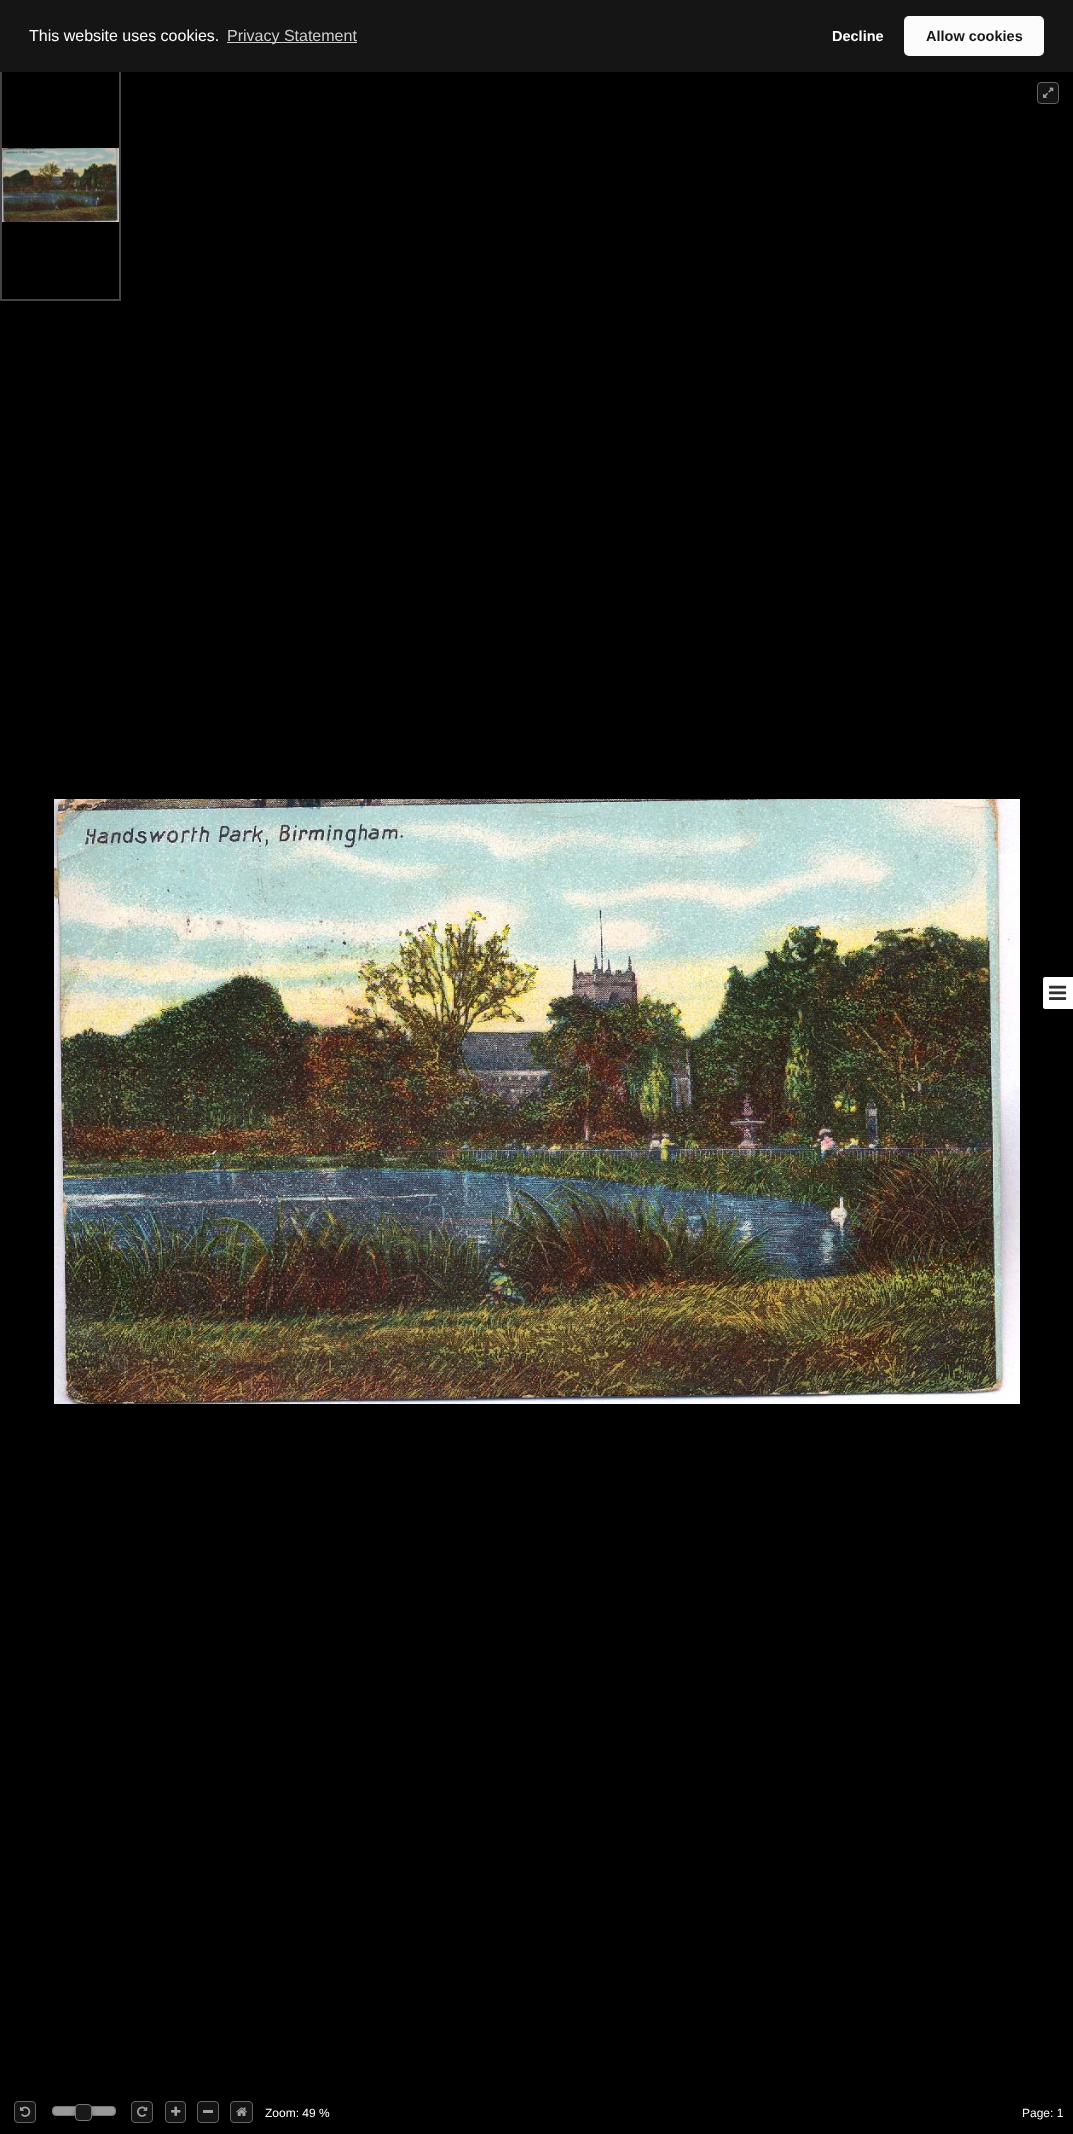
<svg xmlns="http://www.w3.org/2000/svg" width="1073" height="2134">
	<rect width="100%" height="100%" fill="#000000" />
	<rect x="1" y="69" width="119" height="231" fill="none" stroke="#444444" stroke-width="2" />
	<rect x="0" y="0" width="1073" height="72" fill="#151515" />
	<text x="29" y="41" font-family="Liberation Sans" font-size="16" fill="#FFFFFF">This website uses cookies.</text>
	<rect x="227" y="42" width="130" height="1" fill="#CECECE" />
	<text x="227" y="41" font-family="Liberation Sans" font-size="16" fill="#CECECE">Privacy Statement</text>
	<text x="832" y="41" font-family="Liberation Sans" font-size="14.5" font-weight="700" fill="#FFFFFF">Decline</text>
	<rect x="904" y="16" width="140" height="40" rx="5" fill="#FCFCFC" />
	<text x="926" y="41" font-family="Liberation Sans" font-size="14.5" font-weight="700" fill="#151515">Allow cookies</text>
	<path d="M1045 977H1073V1009H1045C1044 1009 1043 1008 1043 1007V979C1043 978 1044 977 1045 977Z" fill="#FFFFFF" />
	<image x="1049" y="985" width="18" height="15" href="assets/img1.png" />
	<image x="2" y="148" width="117" height="74" href="assets/img2.png" />
	<image x="54" y="799" width="966" height="605" href="assets/img3.png" />
	<rect x="1037.5" y="82.5" width="21" height="21" rx="3.5" fill="#141414" stroke="#646464" />
	<image x="1043" y="87" width="11" height="11" href="assets/img4.png" />
	<rect x="14.5" y="2101.5" width="21" height="21" rx="3.5" fill="#141414" stroke="#646464" />
	<image x="20" y="2106" width="11" height="11" href="assets/img5.png" />
	<rect x="52.5" y="2106.5" width="63" height="9" rx="3.5" fill="#999999" stroke="#767676" />
	<rect x="75" y="2108" width="17" height="17" rx="4" fill="#000000" fill-opacity="0.35" filter="blur(2.5px)" />
	<rect x="75.5" y="2104.5" width="16" height="16" rx="3.5" fill="#191919" stroke="#767676" />
	<rect x="131.5" y="2101.5" width="21" height="21" rx="3.5" fill="#141414" stroke="#646464" />
	<image x="137" y="2106" width="11" height="11" href="assets/img6.png" />
	<rect x="165.5" y="2101.5" width="20" height="21" rx="3.5" fill="#141414" stroke="#646464" />
	<image x="171" y="2106" width="10" height="10" href="assets/img7.png" />
	<rect x="197.5" y="2101.5" width="21" height="21" rx="3.5" fill="#141414" stroke="#646464" />
	<rect x="203" y="2110" width="10" height="3" fill="#A1A1A1" />
	<rect x="230.5" y="2101.5" width="22" height="21" rx="3.5" fill="#141414" stroke="#646464" />
	<image x="236" y="2107" width="11" height="9" href="assets/img8.png" />
	<g font-family="Liberation Sans" font-size="12" fill="#FFFFFF">
		<text x="265" y="2117">Zoom: 49 %</text>
		<text x="1022" y="2117">Page: 1</text>
	</g>
</svg>
